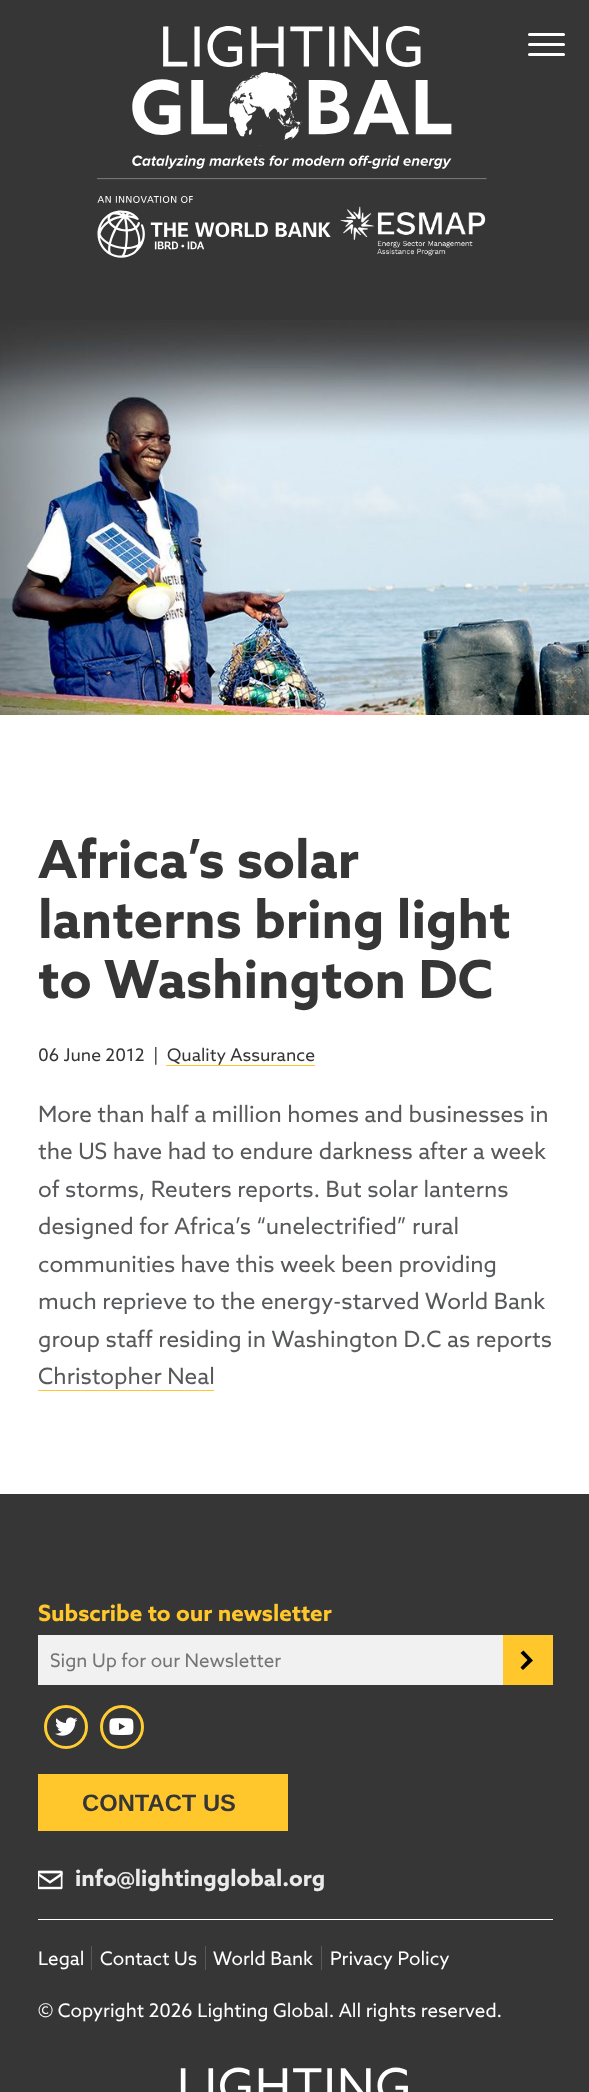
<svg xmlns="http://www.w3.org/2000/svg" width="589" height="2092">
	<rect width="100%" height="100%" fill="#FFFFFF" />
	<rect x="0" y="0" width="589" height="320" fill="#363636" />
	<image x="0" y="320" width="589" height="395" href="assets/img1.png" />
	<image x="97" y="26" width="390" height="232" href="assets/img2.png" />
	<rect x="528" y="33" width="37" height="3" rx="1.5" fill="#FFFFFF" />
	<rect x="528" y="43" width="37" height="3" rx="1.5" fill="#FFFFFF" />
	<rect x="528" y="53" width="37" height="3" rx="1.5" fill="#FFFFFF" />
	<g font-family="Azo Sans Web" font-size="52.5" font-weight="700" fill="#363636">
		<text x="38" y="878">Africa’s solar</text>
		<text x="38" y="938">lanterns bring light</text>
		<text x="38" y="998">to Washington DC</text>
	</g>
	<g font-family="Azo Sans Web" font-size="17.5" fill="#363636">
		<text x="38" y="1061">06 June 2012</text>
		<text x="153" y="1061">|</text>
		<text x="167" y="1061">Quality Assurance</text>
	</g>
	<rect x="166" y="1065" width="149" height="1" fill="#FFC72C" />
	<g font-family="Azo Sans Web" font-size="22.5" fill="#58595B">
		<text x="38" y="1122">More than half a million homes and businesses in</text>
		<text x="38" y="1159">the US have had to endure darkness after a week</text>
		<text x="38" y="1197">of storms, Reuters reports. But solar lanterns</text>
		<text x="38" y="1234">designed for Africa’s “unelectrified” rural</text>
		<text x="38" y="1272">communities have this week been providing</text>
		<text x="38" y="1309">much reprieve to the energy-starved World Bank</text>
		<text x="38" y="1347">group staff residing in Washington D.C as reports</text>
		<text x="38" y="1384">Christopher Neal</text>
	</g>
	<rect x="38" y="1390" width="176" height="1" fill="#FFC72C" />
	<rect x="0" y="1494" width="589" height="598" fill="#363636" />
	<text x="38" y="1621" font-family="Azo Sans Web" font-size="22.5" font-weight="700" fill="#FFC72C">Subscribe to our newsletter</text>
	<rect x="38" y="1635" width="465" height="50" fill="#F1F1F1" />
	<text x="50" y="1667" font-family="Azo Sans Web" font-size="18.75" fill="#757575">Sign Up for our Newsletter</text>
	<rect x="503" y="1635" width="50" height="50" fill="#FFC72C" />
	<path d="M523.5 1650.5L520.5 1653L527.5 1660L520.5 1667.5L523 1670L533 1660.5Z" fill="#000000" />
	<circle cx="66" cy="1727" r="20.5" fill="none" stroke="#FFCC33" stroke-width="3" />
	<image x="55" y="1717" width="23" height="19" href="assets/img3.png" />
	<circle cx="122" cy="1727" r="20.5" fill="none" stroke="#FFCC33" stroke-width="3" />
	<image x="109" y="1718" width="25" height="17" href="assets/img4.png" />
	<rect x="38" y="1774" width="250" height="57" fill="#FFC72C" />
	<text x="82" y="1811" font-family="Liberation Sans" font-size="23.75" font-weight="700" fill="#363636">CONTACT US</text>
	<image x="38" y="1870" width="25" height="20" href="assets/img5.png" />
	<text x="75" y="1886" font-family="Azo Sans Web" font-size="22.5" font-weight="700" fill="#EAEAEA">info@lightingglobal.org</text>
	<rect x="38" y="1919" width="515" height="1" fill="#FFFFFF" />
	<text x="38" y="1965" font-family="Azo Sans Web" font-size="18.75" fill="#FFFFFF">Legal</text>
	<rect x="91" y="1946" width="1" height="24" fill="#58595B" />
	<text x="100" y="1965" font-family="Azo Sans Web" font-size="18.75" fill="#FFFFFF">Contact Us</text>
	<rect x="205" y="1946" width="1" height="24" fill="#58595B" />
	<text x="213" y="1965" font-family="Azo Sans Web" font-size="18.75" fill="#FFFFFF">World Bank</text>
	<rect x="321" y="1946" width="1" height="24" fill="#58595B" />
	<g font-family="Azo Sans Web" font-size="18.75" fill="#FFFFFF">
		<text x="330" y="1965">Privacy Policy</text>
		<text x="38" y="2017">© Copyright 2026 Lighting Global. All rights reserved.</text>
	</g>
	<image x="180" y="2067" width="228" height="25" href="assets/img6.png" />
</svg>
